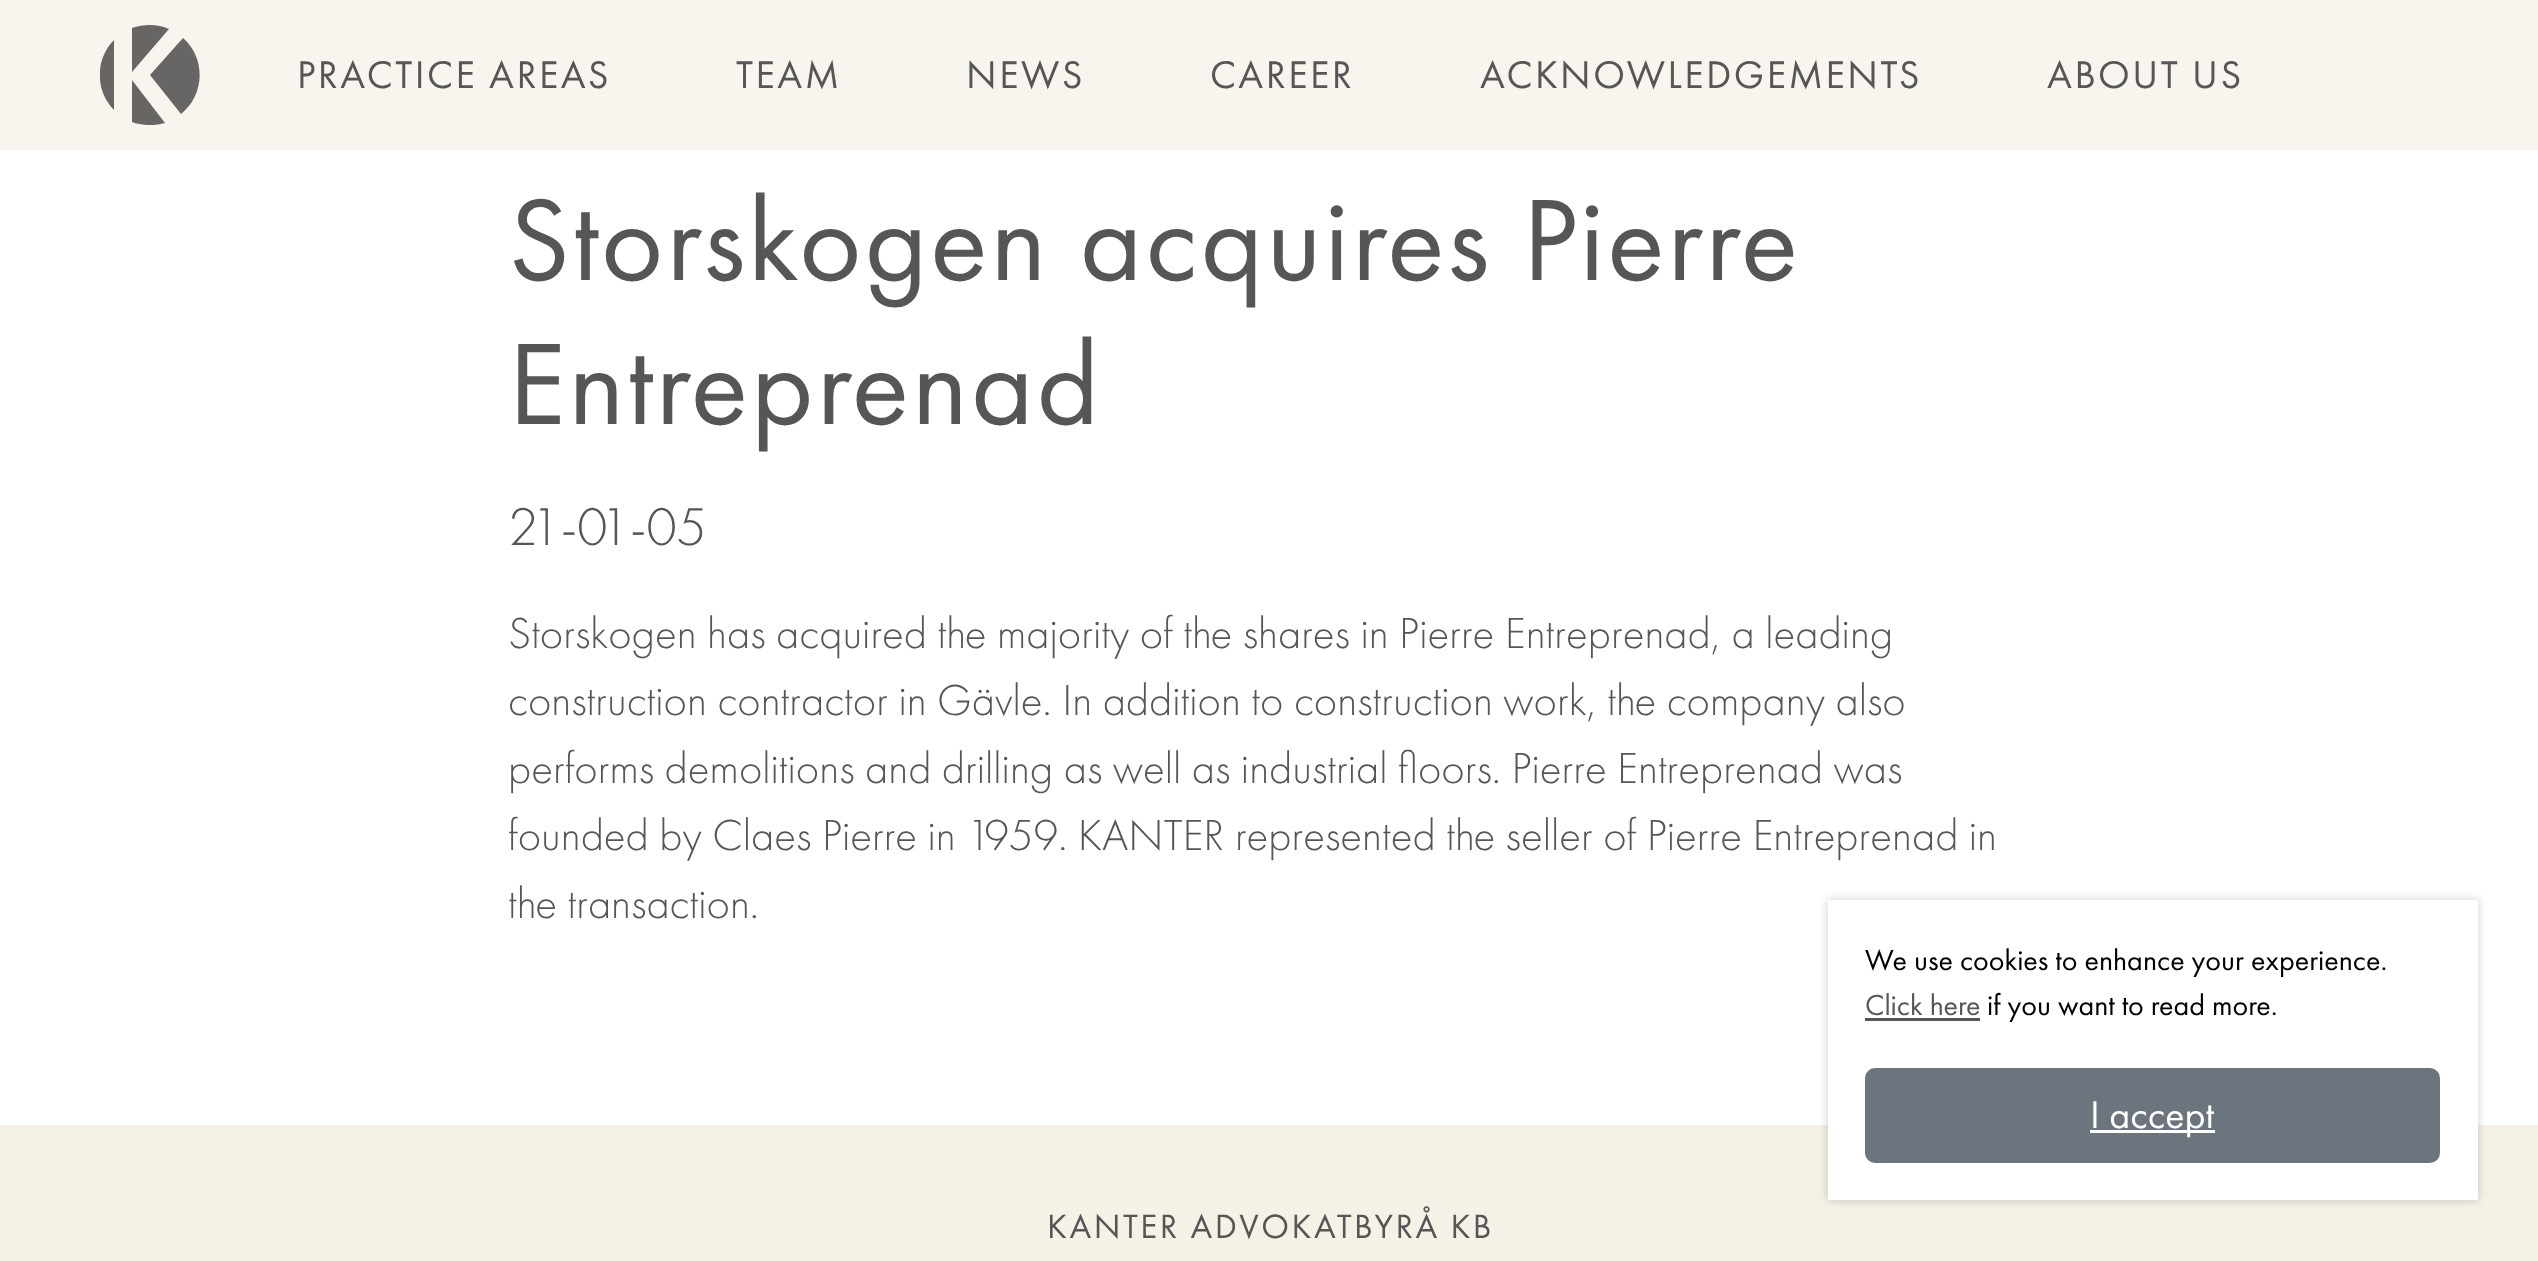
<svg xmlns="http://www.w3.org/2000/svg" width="2538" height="1261">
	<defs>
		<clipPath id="clip1"><rect x="100" y="25" width="100" height="100" /></clipPath>
	</defs>
	<rect width="100%" height="100%" fill="#FFFFFF" />
	<rect x="0" y="0" width="2538" height="150" fill="#F8F5EE" />
	<g clip-path="url(#clip1)">
		<path d="M114 40C95 59 95 91 114 110ZM132 80V122C143 126 155 126 165 123ZM183 38L150 75L181 114C205 95 206 58 183 38M132 72L169 29C158 24 144 24 132 28Z" fill="#676665" />
	</g>
	<g font-family="Futura PT" font-size="40" letter-spacing="2.5" fill="#575656">
		<text x="297" y="88">PRACTICE AREAS</text>
		<text x="736" y="88">TEAM</text>
		<text x="966" y="88">NEWS</text>
		<text x="1210" y="88">CAREER</text>
		<text x="1480" y="88">ACKNOWLEDGEMENTS</text>
		<text x="2047" y="88">ABOUT US</text>
	</g>
	<g font-family="Futura PT" font-size="120" letter-spacing="2.5" fill="#575656">
		<text x="508" y="280">Storskogen acquires Pierre</text>
		<text x="508" y="424">Entreprenad</text>
	</g>
	<text x="508" y="545" font-family="Futura PT" font-size="55" font-weight="300" fill="#575656">21-01-05</text>
	<g font-family="Futura PT" font-size="45" font-weight="300" fill="#575656">
		<text x="508" y="648">Storskogen has acquired the majority of the shares in Pierre Entreprenad, a leading</text>
		<text x="508" y="715">construction contractor in Gävle. In addition to construction work, the company also</text>
		<text x="508" y="783">performs demolitions and drilling as well as industrial floors. Pierre Entreprenad was</text>
		<text x="508" y="850">founded by Claes Pierre in 1959. KANTER represented the seller of Pierre Entreprenad in</text>
		<text x="508" y="918">the transaction.</text>
	</g>
	<rect x="0" y="1125" width="2538" height="136" fill="#F5F1E7" />
	<rect x="1828" y="900" width="650" height="300" fill="#000000" fill-opacity="0.2" filter="blur(5px)" />
	<rect x="1828" y="900" width="650" height="300" fill="#FFFFFF" />
	<text x="1865" y="970" font-family="Futura PT" font-size="30" fill="#000000">We use cookies to enhance your experience.</text>
	<text x="1865" y="1015" font-family="Futura PT" font-size="30" fill="#575656">Click here</text>
	<rect x="1865" y="1018" width="115" height="3" fill="#575656" />
	<text x="1987" y="1015" font-family="Futura PT" font-size="30" fill="#000000">if you want to read more.</text>
	<rect x="1866.5" y="1069.5" width="572" height="92" rx="8.5" fill="#6C757D" stroke="#6C757D" stroke-width="3" />
	<rect x="2090" y="1130" width="125" height="3" fill="#FFFFFF" />
	<text x="2090" y="1128" font-family="Futura PT" font-size="40" fill="#FFFFFF">I accept</text>
	<text x="1047" y="1238" font-family="Futura PT" font-size="35" letter-spacing="2.5" fill="#575656">KANTER ADVOKATBYRÅ KB</text>
</svg>
